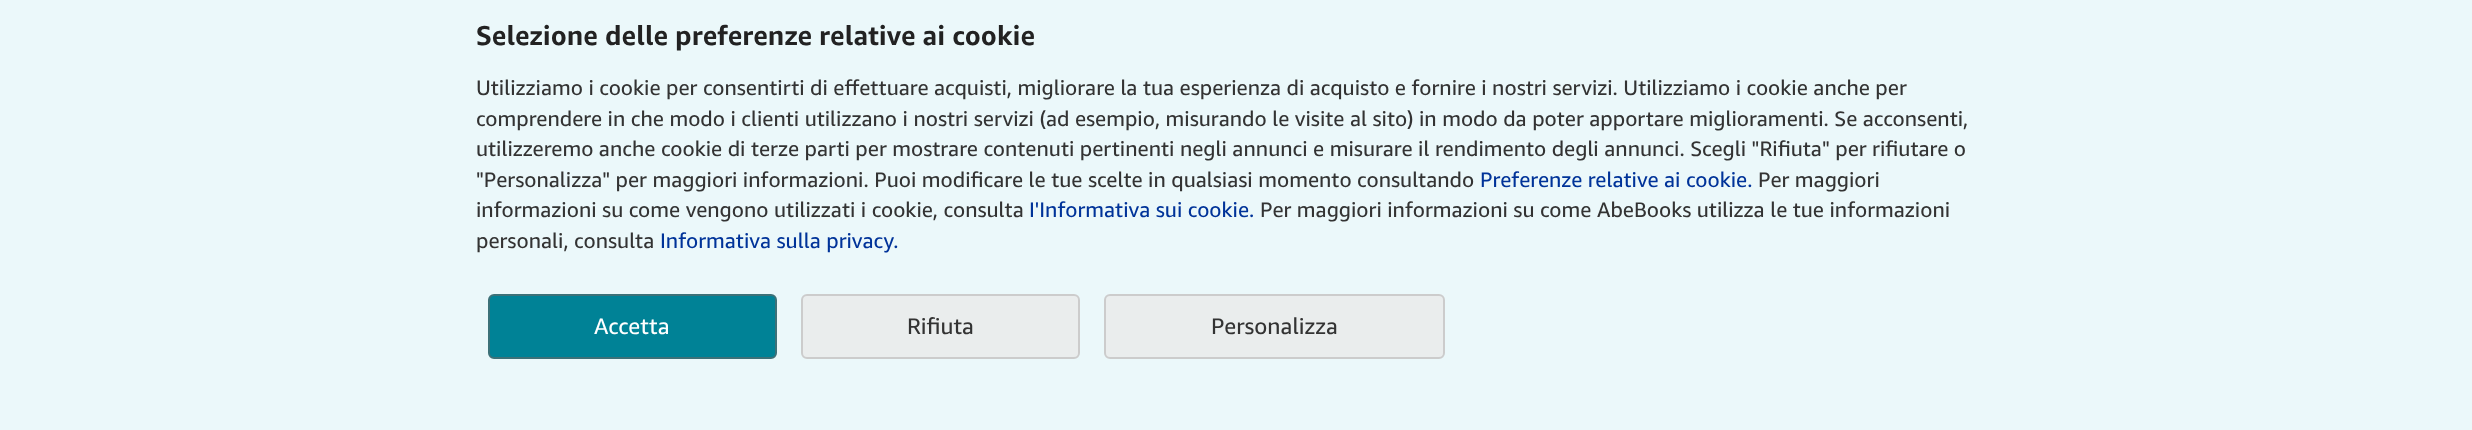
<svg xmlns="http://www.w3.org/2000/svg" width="2472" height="430">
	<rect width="100%" height="100%" fill="#EBF8FA" />
	<text x="476" y="45" font-family="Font" font-size="27" font-weight="700" fill="#222222">Selezione delle preferenze relative ai cookie</text>
	<g font-family="Font" font-size="21" fill="#333333">
		<text x="476" y="95">Utilizziamo i cookie per consentirti di effettuare acquisti, migliorare la tua esperienza di acquisto e fornire i nostri servizi. Utilizziamo i cookie anche per</text>
		<text x="476" y="126">comprendere in che modo i clienti utilizzano i nostri servizi (ad esempio, misurando le visite al sito) in modo da poter apportare miglioramenti. Se acconsenti,</text>
		<text x="476" y="156">utilizzeremo anche cookie di terze parti per mostrare contenuti pertinenti negli annunci e misurare il rendimento degli annunci. Scegli "Rifiuta" per rifiutare o</text>
		<text x="476" y="187">"Personalizza" per maggiori informazioni. Puoi modificare le tue scelte in qualsiasi momento consultando</text>
	</g>
	<text x="1480" y="187" font-family="Font" font-size="21" fill="#003399">Preferenze relative ai cookie.</text>
	<g font-family="Font" font-size="21" fill="#333333">
		<text x="1758" y="187">Per maggiori</text>
		<text x="476" y="217">informazioni su come vengono utilizzati i cookie, consulta</text>
	</g>
	<text x="1029" y="217" font-family="Font" font-size="21" fill="#003399">I'Informativa sui cookie.</text>
	<g font-family="Font" font-size="21" fill="#333333">
		<text x="1260" y="217">Per maggiori informazioni su come AbeBooks utilizza le tue informazioni</text>
		<text x="476" y="248">personali, consulta</text>
	</g>
	<text x="660" y="248" font-family="Font" font-size="21" fill="#003399">Informativa sulla privacy.</text>
	<rect x="489" y="295" width="287" height="63" rx="5" fill="#008296" stroke="#3D7178" stroke-width="2" />
	<text x="594" y="334" font-family="Font" font-size="22.5" fill="#FFFFFF">Accetta</text>
	<rect x="802" y="295" width="277" height="63" rx="5" fill="#EAEDED" stroke="#CCCCCC" stroke-width="2" />
	<text x="907" y="334" font-family="Font" font-size="22.5" fill="#333333">Rifiuta</text>
	<rect x="1105" y="295" width="339" height="63" rx="5" fill="#EAEDED" stroke="#CCCCCC" stroke-width="2" />
	<text x="1211" y="334" font-family="Font" font-size="22.5" fill="#333333">Personalizza</text>
</svg>
